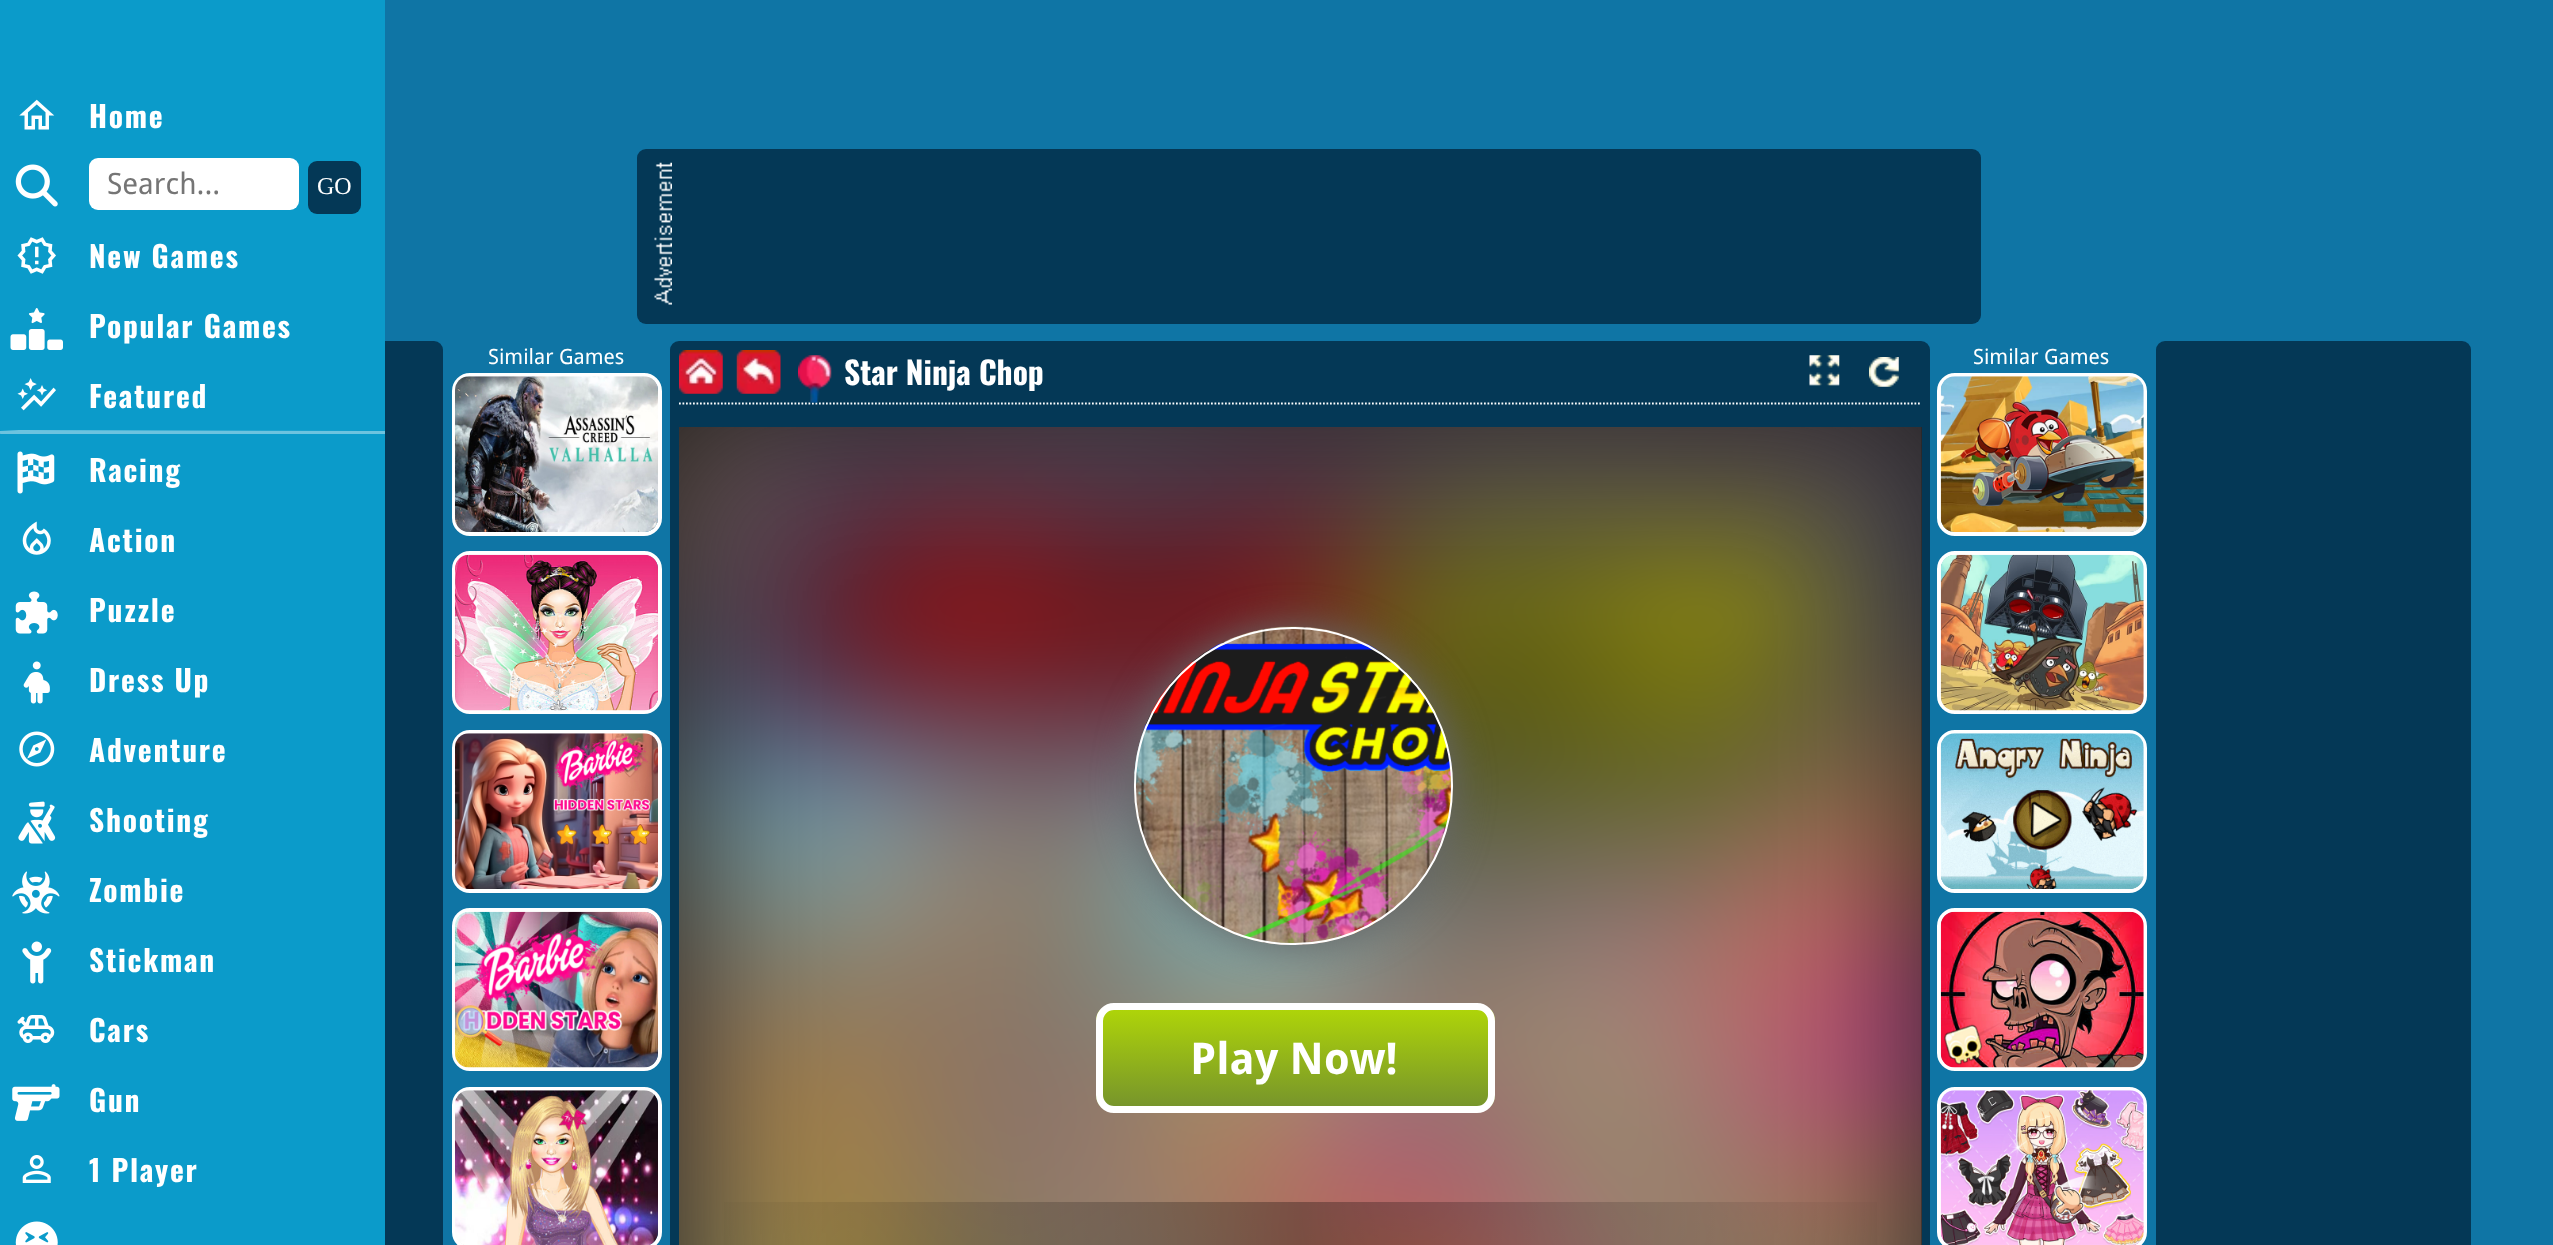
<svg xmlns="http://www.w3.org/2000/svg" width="2553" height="1245">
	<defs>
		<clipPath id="clip1"><rect x="1096" y="1003" width="399" height="110" rx="18" /></clipPath>
		<linearGradient id="g1" gradientUnits="userSpaceOnUse" x1="1295" y1="1010" x2="1295" y2="1106"><stop offset="0" stop-color="#AED409" /><stop offset="1" stop-color="#77952B" /></linearGradient>
		<linearGradient id="g2" gradientUnits="userSpaceOnUse" x1="679" y1="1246" x2="1922" y2="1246"><stop offset="0" stop-color="#000000" stop-opacity="0" /><stop offset="0.5" stop-color="#000000" stop-opacity="0.3" /><stop offset="1" stop-color="#000000" stop-opacity="0" /></linearGradient>
	</defs>
	<rect width="100%" height="100%" fill="#0F75A5" />
	<rect x="128" y="341" width="315" height="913" rx="9" fill="#043856" />
	<rect x="0" y="0" width="385" height="1245" fill="#0B9BCA" />
	<image x="19" y="99" width="36" height="31" href="assets/img1.png" />
	<text x="89" y="128" font-family="Oswald" font-size="29.5" font-weight="700" letter-spacing="1.75" fill="#FFFFFF">Home</text>
	<image x="15" y="164" width="43" height="43" href="assets/img2.png" />
	<rect x="89" y="158" width="210" height="52" rx="9" fill="#FFFFFF" />
	<text x="107" y="194" font-family="Droid Sans" font-size="29.5" fill="#757575">Search...</text>
	<rect x="308" y="161" width="53" height="53" rx="9" fill="#043856" />
	<text x="317" y="194" font-family="Liberation Serif" font-size="24" fill="#FFFFFF">GO</text>
	<image x="17" y="237" width="39" height="37" href="assets/img3.png" />
	<text x="89" y="268" font-family="Oswald" font-size="29.5" font-weight="700" letter-spacing="1.75" fill="#FFFFFF">New Games</text>
	<image x="10" y="308" width="53" height="42" href="assets/img4.png" />
	<text x="89" y="338" font-family="Oswald" font-size="29.5" font-weight="700" letter-spacing="1.75" fill="#FFFFFF">Popular Games</text>
	<image x="17" y="378" width="39" height="33" href="assets/img5.png" />
	<text x="89" y="408" font-family="Oswald" font-size="29.5" font-weight="700" letter-spacing="1.75" fill="#FFFFFF">Featured</text>
	<path d="M19 430L370 431H385V434H2C-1 434-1 433 0 431Z" fill="#6DC3DF" />
	<image x="17" y="451" width="38" height="43" href="assets/img6.png" />
	<text x="89" y="482" font-family="Oswald" font-size="29.5" font-weight="700" letter-spacing="1.75" fill="#FFFFFF">Racing</text>
	<image x="22" y="521" width="29" height="34" href="assets/img7.png" />
	<text x="89" y="552" font-family="Oswald" font-size="29.5" font-weight="700" letter-spacing="1.75" fill="#FFFFFF">Action</text>
	<image x="15" y="591" width="43" height="43" href="assets/img8.png" />
	<text x="89" y="622" font-family="Oswald" font-size="29.5" font-weight="700" letter-spacing="1.75" fill="#FFFFFF">Puzzle</text>
	<image x="23" y="661" width="27" height="43" href="assets/img9.png" />
	<text x="89" y="692" font-family="Oswald" font-size="29.5" font-weight="700" letter-spacing="1.75" fill="#FFFFFF">Dress Up</text>
	<image x="19" y="731" width="36" height="36" href="assets/img10.png" />
	<text x="89" y="762" font-family="Oswald" font-size="29.5" font-weight="700" letter-spacing="1.75" fill="#FFFFFF">Adventure</text>
	<image x="18" y="801" width="38" height="43" href="assets/img11.png" />
	<text x="89" y="832" font-family="Oswald" font-size="29.5" font-weight="700" letter-spacing="1.75" fill="#FFFFFF">Shooting</text>
	<image x="12" y="871" width="48" height="43" href="assets/img12.png" />
	<text x="89" y="902" font-family="Oswald" font-size="29.5" font-weight="700" letter-spacing="1.75" fill="#FFFFFF">Zombie</text>
	<image x="22" y="941" width="30" height="43" href="assets/img13.png" />
	<text x="89" y="972" font-family="Oswald" font-size="29.5" font-weight="700" letter-spacing="1.75" fill="#FFFFFF">Stickman</text>
	<image x="17" y="1015" width="38" height="28" href="assets/img14.png" />
	<text x="89" y="1042" font-family="Oswald" font-size="29.5" font-weight="700" letter-spacing="1.75" fill="#FFFFFF">Cars</text>
	<image x="12" y="1084" width="48" height="37" href="assets/img15.png" />
	<text x="89" y="1112" font-family="Oswald" font-size="29.5" font-weight="700" letter-spacing="1.75" fill="#FFFFFF">Gun</text>
	<image x="22" y="1155" width="29" height="28" href="assets/img16.png" />
	<text x="89" y="1182" font-family="Oswald" font-size="29.5" font-weight="700" letter-spacing="1.75" fill="#FFFFFF">1 Player</text>
	<image x="15" y="1221" width="43" height="24" href="assets/img17.png" />
	<rect x="637" y="149" width="1344" height="175" rx="9" fill="#043856" />
	<image x="654" y="162" width="18" height="143" href="assets/img18.png" />
	<text x="488" y="364" font-family="Droid Sans" font-size="21" fill="#FFFFFF">Similar Games</text>
	<rect x="454" y="375" width="206" height="159" rx="16" fill="none" stroke="#FFFFFF" stroke-width="4" />
	<image x="455" y="376" width="203" height="156" href="assets/img19.png" />
	<rect x="454" y="553" width="206" height="159" rx="16" fill="none" stroke="#FFFFFF" stroke-width="4" />
	<image x="455" y="554" width="203" height="157" href="assets/img20.png" />
	<rect x="454" y="732" width="206" height="159" rx="16" fill="none" stroke="#FFFFFF" stroke-width="4" />
	<image x="455" y="733" width="203" height="156" href="assets/img21.png" />
	<rect x="454" y="910" width="206" height="159" rx="16" fill="none" stroke="#FFFFFF" stroke-width="4" />
	<image x="455" y="911" width="203" height="157" href="assets/img22.png" />
	<rect x="454" y="1089" width="206" height="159" rx="16" fill="none" stroke="#FFFFFF" stroke-width="4" />
	<image x="455" y="1090" width="203" height="155" href="assets/img23.png" />
	<text x="1973" y="364" font-family="Droid Sans" font-size="21" fill="#FFFFFF">Similar Games</text>
	<rect x="1939" y="375" width="206" height="159" rx="16" fill="none" stroke="#FFFFFF" stroke-width="4" />
	<image x="1940" y="376" width="204" height="156" href="assets/img24.png" />
	<rect x="1939" y="553" width="206" height="159" rx="16" fill="none" stroke="#FFFFFF" stroke-width="4" />
	<image x="1940" y="554" width="204" height="157" href="assets/img25.png" />
	<rect x="1939" y="732" width="206" height="159" rx="16" fill="none" stroke="#FFFFFF" stroke-width="4" />
	<image x="1940" y="733" width="204" height="156" href="assets/img26.png" />
	<rect x="1939" y="910" width="206" height="159" rx="16" fill="none" stroke="#FFFFFF" stroke-width="4" />
	<image x="1940" y="911" width="204" height="157" href="assets/img27.png" />
	<rect x="1939" y="1089" width="206" height="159" rx="16" fill="none" stroke="#FFFFFF" stroke-width="4" />
	<image x="1940" y="1090" width="204" height="155" href="assets/img28.png" />
	<rect x="2156" y="341" width="315" height="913" rx="9" fill="#043856" />
	<rect x="670" y="341" width="1260" height="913" rx="9" fill="#043856" />
	<path d="M679 403.5H1921.5" fill="none" stroke="#FFFFFF" stroke-width="1.8" stroke-dasharray="1.75 1.75" />
	<image x="679" y="350" width="44" height="44" href="assets/img29.png" />
	<image x="736" y="350" width="45" height="44" href="assets/img30.png" />
	<image x="798" y="355" width="34" height="48" href="assets/img31.png" />
	<text x="844" y="385" font-family="Oswald" font-size="31.5" font-weight="700" fill="#FFFFFF">Star Ninja Chop</text>
	<image x="1809" y="355" width="31" height="31" href="assets/img32.png" />
	<image x="1869" y="357" width="30" height="30" href="assets/img33.png" />
	<rect x="679" y="427" width="1243" height="818" fill="#222222" />
	<image x="679" y="427" width="1243" height="818" href="assets/img34.png" />
	<rect x="1134" y="627" width="319" height="318" rx="158" fill="#666666" filter="blur(19px)" />
	<image x="1134" y="626" width="319" height="319" href="assets/img35.png" />
	<rect x="1135" y="628" width="317" height="316" rx="157" fill="none" stroke="#FFFFFF" stroke-width="2" />
	<g clip-path="url(#clip1)">
		<rect x="1096" y="1010" width="399" height="96" fill="url(#g1)" />
	</g>
	<rect x="1099.5" y="1006.5" width="392" height="103" rx="14.5" fill="none" stroke="#FFFFFF" stroke-width="7" />
	<text x="1190" y="1074" font-family="Droid Sans" font-size="43.75" font-weight="700" fill="#FFFFFF">Play Now!</text>
	<rect x="724" y="1202" width="1153" height="43" fill="url(#g2)" />
</svg>
